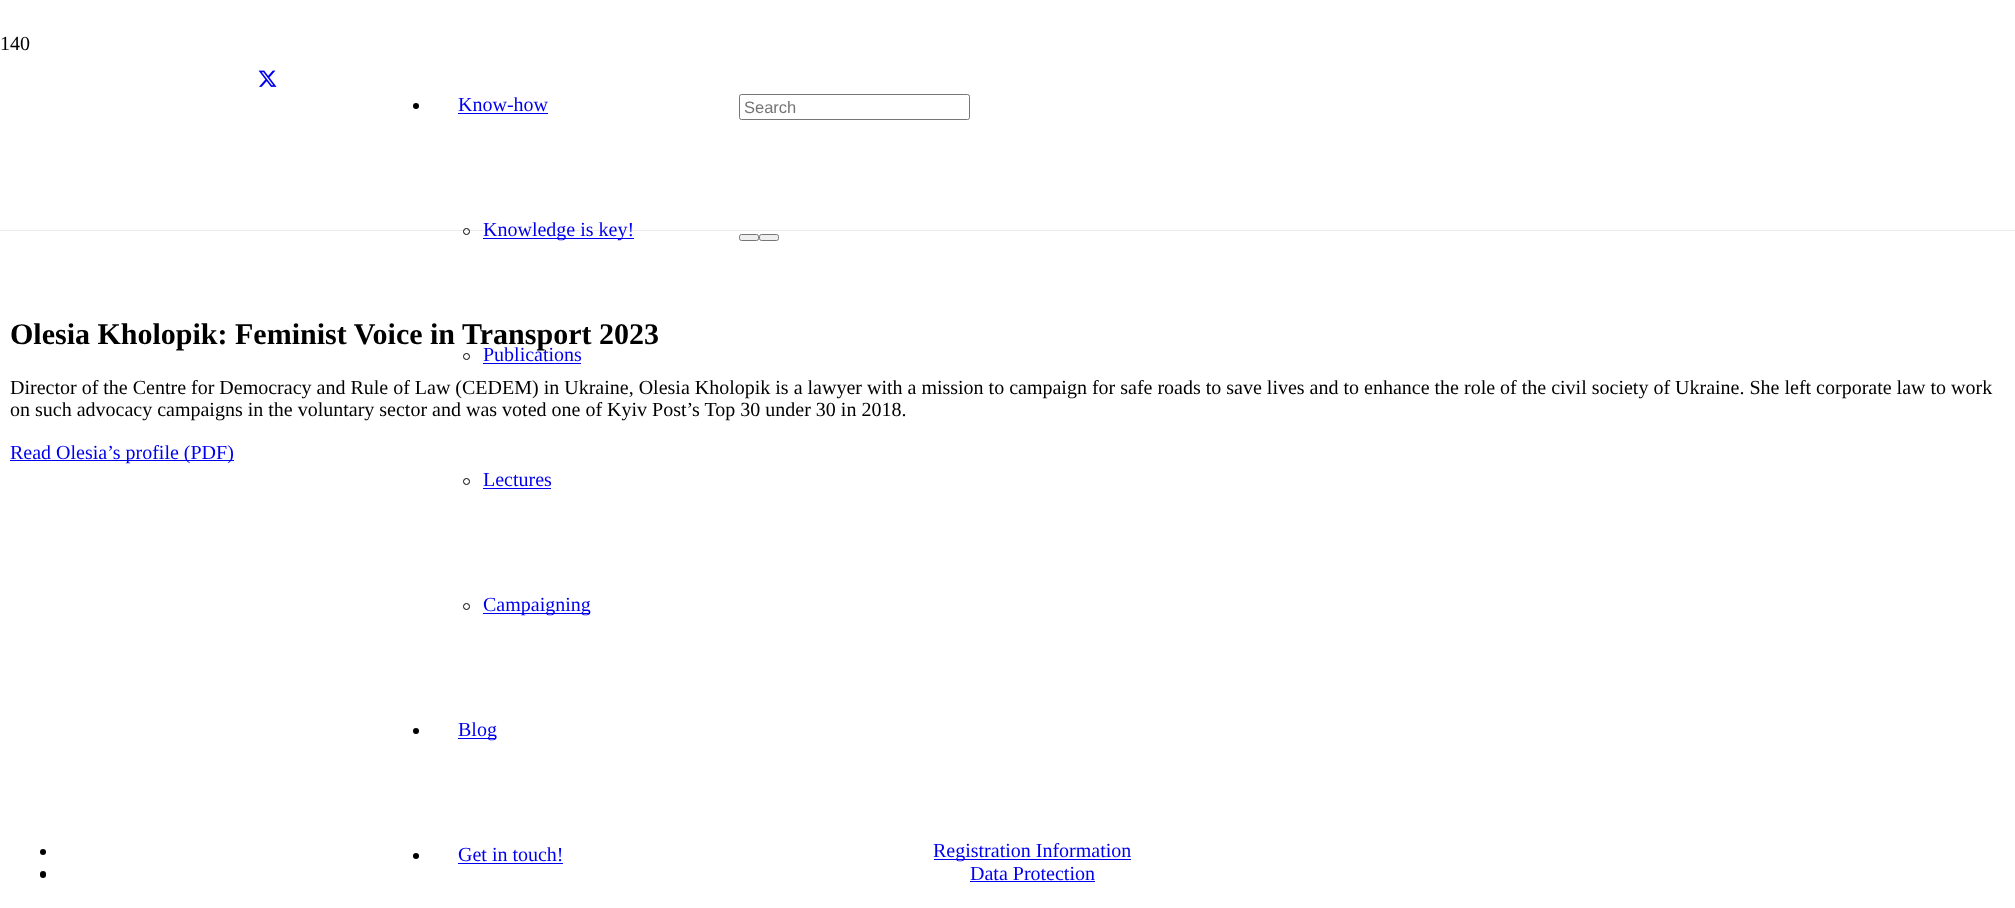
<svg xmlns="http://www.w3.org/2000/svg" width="2015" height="908">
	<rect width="100%" height="100%" fill="#FFFFFF" />
	<text x="0" y="50" font-family="Liberation Serif" font-size="20" fill="#000000">140</text>
	<image x="258" y="70" width="19" height="17" href="assets/img1.png" />
	<rect x="0" y="230" width="2015" height="1" fill="#EBEBEB" />
	<circle cx="416" cy="106" r="3" fill="#000000" />
	<text x="458" y="111" font-family="Liberation Serif" font-size="20" fill="#0000EE">Know-how</text>
	<rect x="458" y="113" width="90" height="1" fill="#0000EE" />
	<circle cx="466.5" cy="231.5" r="3" fill="none" stroke="#000000" />
	<rect x="483" y="238" width="151" height="1" fill="#0000EE" />
	<text x="483" y="236" font-family="Liberation Serif" font-size="20" fill="#0000EE">Knowledge is key!</text>
	<circle cx="466.5" cy="356.5" r="3" fill="none" stroke="#000000" />
	<text x="483" y="361" font-family="Liberation Serif" font-size="20" fill="#0000EE">Publications</text>
	<rect x="483" y="363" width="98" height="1" fill="#0000EE" />
	<circle cx="466.5" cy="481.5" r="3" fill="none" stroke="#000000" />
	<text x="483" y="486" font-family="Liberation Serif" font-size="20" fill="#0000EE">Lectures</text>
	<rect x="483" y="488" width="68" height="1" fill="#0000EE" />
	<circle cx="466.5" cy="606.5" r="3" fill="none" stroke="#000000" />
	<rect x="483" y="613" width="107" height="1" fill="#0000EE" />
	<text x="483" y="611" font-family="Liberation Serif" font-size="20" fill="#0000EE">Campaigning</text>
	<circle cx="416" cy="731" r="3" fill="#000000" />
	<rect x="458" y="738" width="38" height="1" fill="#0000EE" />
	<text x="458" y="736" font-family="Liberation Serif" font-size="20" fill="#0000EE">Blog</text>
	<circle cx="416" cy="856" r="3" fill="#000000" />
	<text x="458" y="861" font-family="Liberation Serif" font-size="20" fill="#0000EE">Get in touch!</text>
	<rect x="458" y="863" width="105" height="1" fill="#0000EE" />
	<rect x="739.5" y="94.5" width="230" height="25" rx="2" fill="none" stroke="#767676" />
	<text x="744" y="113" font-family="Liberation Sans" font-size="16.5" fill="#757575">Search</text>
	<rect x="739.5" y="234.5" width="19" height="6" rx="2" fill="#EFEFEF" stroke="#767676" />
	<rect x="759.5" y="234.5" width="19" height="6" rx="2" fill="#EFEFEF" stroke="#767676" />
	<text x="10" y="344" font-family="Liberation Serif" font-size="30" font-weight="700" fill="#000000">Olesia Kholopik: Feminist Voice in Transport 2023</text>
	<g font-family="Liberation Serif" font-size="20" fill="#000000">
		<text x="10" y="394">Director of the Centre for Democracy and Rule of Law (CEDEM) in Ukraine, Olesia Kholopik is a lawyer with a mission to campaign for safe roads to save lives and to enhance the role of the civil society of Ukraine. She left corporate law to work</text>
		<text x="10" y="416">on such advocacy campaigns in the voluntary sector and was voted one of Kyiv Post’s Top 30 under 30 in 2018.</text>
	</g>
	<rect x="10" y="460" width="224" height="1" fill="#0000EE" />
	<text x="10" y="459" font-family="Liberation Serif" font-size="20" fill="#0000EE">Read Olesia’s profile (PDF)</text>
	<circle cx="43" cy="852" r="3" fill="#000000" />
	<rect x="934" y="859" width="197" height="1" fill="#0000EE" />
	<text x="933" y="857" font-family="Liberation Serif" font-size="20" fill="#0000EE">Registration Information</text>
	<rect x="40" y="871" width="6" height="7" rx="3" fill="#000000" />
	<text x="970" y="880" font-family="Liberation Serif" font-size="20" fill="#0000EE">Data Protection</text>
	<rect x="970" y="881" width="125" height="1" fill="#0000EE" />
</svg>
